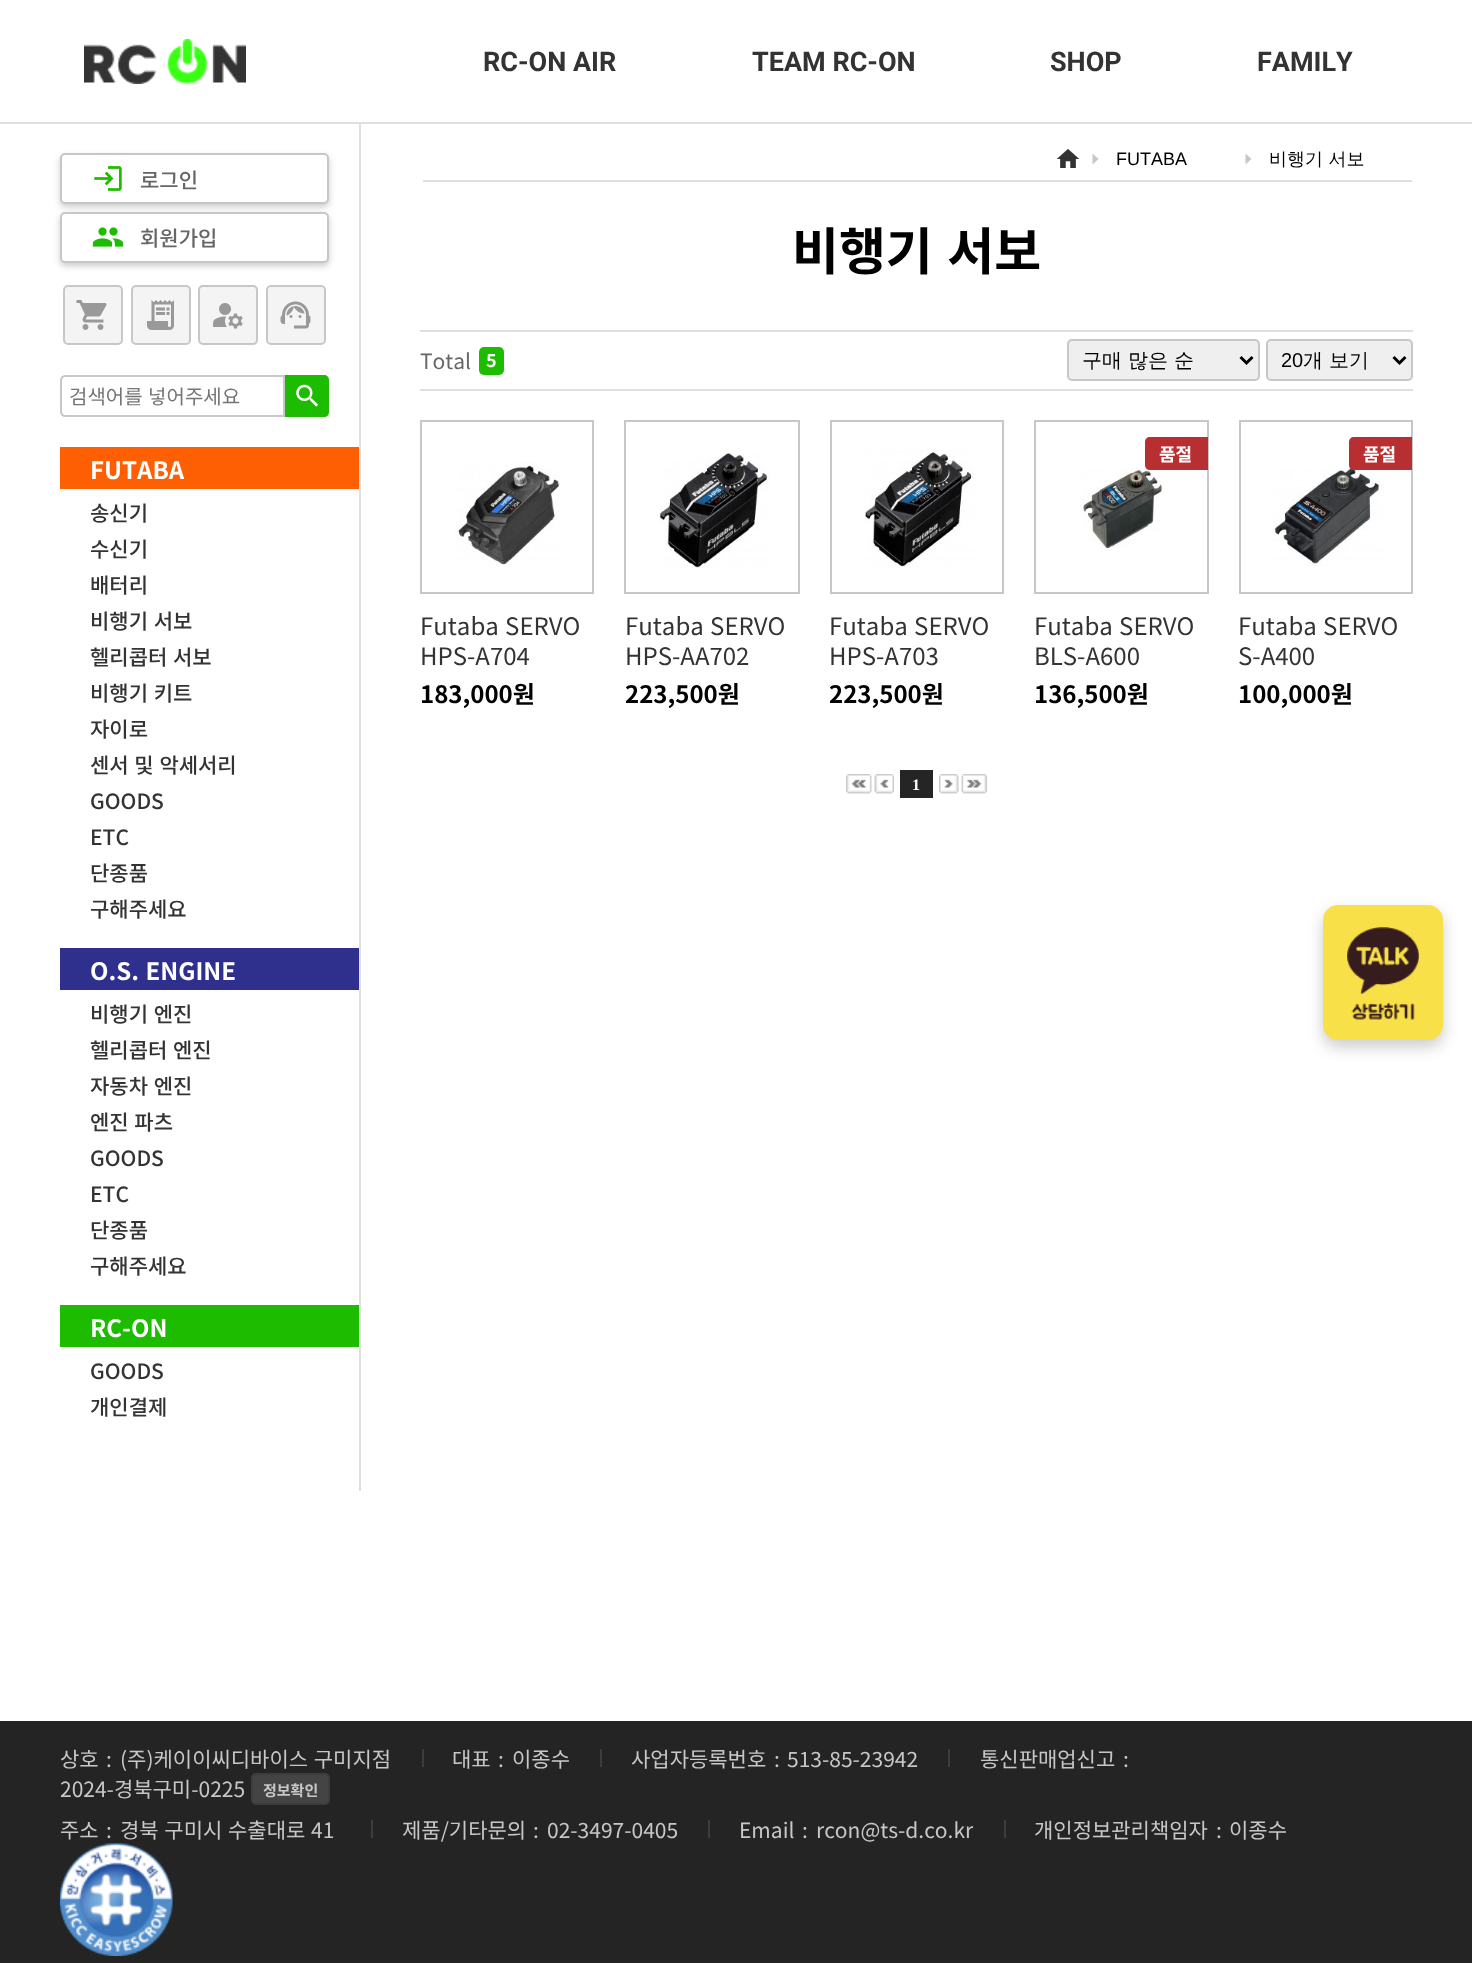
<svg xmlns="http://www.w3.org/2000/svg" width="1472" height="1963">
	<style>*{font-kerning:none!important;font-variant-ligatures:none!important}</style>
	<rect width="100%" height="100%" fill="#FFFFFF" />
	<rect x="359" y="123" width="2" height="1368" fill="#DFDFDF" />
	<rect x="0" y="122" width="1472" height="2" fill="#DFDFDF" />
	<image x="84" y="39" width="162" height="45" href="assets/img1.png" />
	<g font-family="Roboto" font-size="27" font-weight="700" fill="#333333">
		<text x="483" y="71">RC-ON AIR</text>
		<text x="752" y="71">TEAM RC-ON</text>
		<text x="1050" y="71">SHOP</text>
		<text x="1257" y="71">FAMILY</text>
	</g>
	<rect x="60" y="156" width="269" height="51" rx="5" fill="#000000" fill-opacity="0.2" filter="blur(3px)" />
	<rect x="61" y="154" width="267" height="49" rx="4" fill="#FFFFFF" stroke="#C7C7C7" stroke-width="2" />
	<image x="94" y="166" width="28" height="25" href="assets/img2.png" />
	<text x="140" y="188" font-family="Noto Sans KR" font-size="21" font-weight="500" fill="#666666">로그인</text>
	<rect x="60" y="215" width="269" height="51" rx="5" fill="#000000" fill-opacity="0.2" filter="blur(3px)" />
	<rect x="61" y="213" width="267" height="49" rx="4" fill="#FFFFFF" stroke="#C7C7C7" stroke-width="2" />
	<image x="92" y="227" width="32" height="20" href="assets/img3.png" />
	<text x="140" y="246" font-family="Noto Sans KR" font-size="21" font-weight="500" fill="#666666">회원가입</text>
	<rect x="64" y="286" width="58" height="58" rx="4" fill="#F4F4F4" stroke="#C7C7C7" stroke-width="2" />
	<image x="76" y="300" width="31" height="30" href="assets/img4.png" />
	<rect x="132" y="286" width="58" height="58" rx="4" fill="#F4F4F4" stroke="#C7C7C7" stroke-width="2" />
	<image x="147" y="300" width="27" height="30" href="assets/img5.png" />
	<rect x="199" y="286" width="58" height="58" rx="4" fill="#F4F4F4" stroke="#C7C7C7" stroke-width="2" />
	<image x="213" y="303" width="30" height="26" href="assets/img6.png" />
	<rect x="267" y="286" width="58" height="58" rx="4" fill="#F4F4F4" stroke="#C7C7C7" stroke-width="2" />
	<image x="280" y="301" width="31" height="28" href="assets/img7.png" />
	<path d="M65 376H284V416H65C63 416 61 414 61 412V380C61 378 63 376 65 376Z" fill="none" stroke="#C7C7C7" stroke-width="2" />
	<text x="69" y="404" word-spacing="1" font-family="Noto Sans KR" font-size="20" fill="#757575">검색어를 넣어주세요</text>
	<path d="M285 375H324C327 375 329 377 329 380V412C329 415 327 417 324 417H285Z" fill="#1DBC00" />
	<image x="296" y="384" width="22" height="23" href="assets/img8.png" />
	<rect x="60" y="447" width="299" height="42" fill="#FF5F03" />
	<text x="90" y="479" font-family="Noto Sans KR" font-size="24" font-weight="700" fill="#FFFFFF">FUTABA</text>
	<g font-family="Noto Sans KR" font-size="21" font-weight="500" fill="#333333">
		<text x="90" y="521">송신기</text>
		<text x="90" y="557">수신기</text>
		<text x="90" y="593">배터리</text>
		<text x="90" y="629" word-spacing="1">비행기 서보</text>
		<text x="90" y="665" word-spacing="1">헬리콥터 서보</text>
		<text x="90" y="701" word-spacing="1">비행기 키트</text>
		<text x="90" y="737">자이로</text>
		<text x="90" y="773" word-spacing="1">센서 및 악세서리</text>
		<text x="90" y="809">GOODS</text>
		<text x="90" y="845">ETC</text>
		<text x="90" y="881">단종품</text>
		<text x="90" y="917">구해주세요</text>
	</g>
	<rect x="60" y="948" width="299" height="42" fill="#2F2F8D" />
	<text x="90" y="980" word-spacing="1" font-family="Noto Sans KR" font-size="24" font-weight="700" fill="#FFFFFF">O.S. ENGINE</text>
	<g font-family="Noto Sans KR" font-size="21" font-weight="500" fill="#333333">
		<text x="90" y="1022" word-spacing="1">비행기 엔진</text>
		<text x="90" y="1058" word-spacing="1">헬리콥터 엔진</text>
		<text x="90" y="1094" word-spacing="1">자동차 엔진</text>
		<text x="90" y="1130" word-spacing="1">엔진 파츠</text>
		<text x="90" y="1166">GOODS</text>
		<text x="90" y="1202">ETC</text>
		<text x="90" y="1238">단종품</text>
		<text x="90" y="1274">구해주세요</text>
	</g>
	<rect x="60" y="1305" width="299" height="42" fill="#1DBC00" />
	<text x="90" y="1337" font-family="Noto Sans KR" font-size="24" font-weight="700" fill="#FFFFFF">RC-ON</text>
	<g font-family="Noto Sans KR" font-size="21" font-weight="500" fill="#333333">
		<text x="90" y="1379">GOODS</text>
		<text x="90" y="1415">개인결제</text>
	</g>
	<rect x="423" y="180" width="989" height="2" fill="#DFDFDF" />
	<image x="1056" y="149" width="24" height="19" href="assets/img9.png" />
	<path d="M1092.5 164.5V153.5L1098.5 159Z" fill="#C7C7C7" />
	<text x="1116" y="165" font-family="Liberation Sans" font-size="18" fill="#000000">FUTABA</text>
	<path d="M1245.5 164.5V153.5L1251.5 159Z" fill="#C7C7C7" />
	<text x="1269" y="165" font-family="WenQuanYi Zen Hei" font-size="18" font-weight="500" fill="#000000">비행기 서보</text>
	<text x="792" y="270" word-spacing="3" font-family="Noto Sans KR" font-size="51" font-weight="700" fill="#000000">비행기 서보</text>
	<rect x="420" y="330" width="993" height="2" fill="#DFDFDF" />
	<rect x="420" y="389" width="993" height="2" fill="#DFDFDF" />
	<text x="420" y="369" font-family="Noto Sans KR" font-size="21" fill="#666666">Total</text>
	<rect x="479" y="347" width="25" height="28" rx="5" fill="#1DBC00" />
	<text x="486" y="367" font-family="Noto Sans KR" font-size="18" font-weight="700" fill="#FFFFFF">5</text>
	<rect x="1068" y="340" width="191" height="40" rx="4" fill="#EFEFEF" stroke="#C7C7C7" stroke-width="2" />
	<path d="M1240.5 357L1246.5 363L1252.5 357" fill="none" stroke="#000000" stroke-width="3" />
	<text x="1082" y="367" font-family="WenQuanYi Zen Hei" font-size="20" font-weight="500" fill="#000000">구매 많은 순</text>
	<rect x="1267" y="340" width="145" height="40" rx="4" fill="#EFEFEF" stroke="#C7C7C7" stroke-width="2" />
	<path d="M1393.5 357L1399.5 363L1405.5 357" fill="none" stroke="#000000" stroke-width="3" />
	<text x="1281" y="367" font-family="Liberation Sans" font-size="20" fill="#000000">20</text>
	<text x="1303" y="367" font-family="WenQuanYi Zen Hei" font-size="20" font-weight="500" fill="#000000">개 보기</text>
	<rect x="421" y="421" width="172" height="172" fill="none" stroke="#C7C7C7" stroke-width="2" />
	<image x="455" y="462" width="105" height="104" href="assets/img10.png" />
	<g font-family="Noto Sans KR" font-size="24" fill="#333333">
		<text x="420" y="635" word-spacing="1">Futaba SERVO</text>
		<text x="420" y="665">HPS-A704</text>
	</g>
	<text x="420" y="703" font-family="Noto Sans KR" font-size="24" font-weight="700" fill="#000000">183,000원</text>
	<rect x="625" y="421" width="174" height="172" fill="none" stroke="#C7C7C7" stroke-width="2" />
	<image x="659" y="452" width="111" height="117" href="assets/img11.png" />
	<g font-family="Noto Sans KR" font-size="24" fill="#333333">
		<text x="625" y="635" word-spacing="1">Futaba SERVO</text>
		<text x="625" y="665">HPS-AA702</text>
	</g>
	<text x="625" y="703" font-family="Noto Sans KR" font-size="24" font-weight="700" fill="#000000">223,500원</text>
	<rect x="831" y="421" width="172" height="172" fill="none" stroke="#C7C7C7" stroke-width="2" />
	<image x="865" y="449" width="110" height="118" href="assets/img12.png" />
	<g font-family="Noto Sans KR" font-size="24" fill="#333333">
		<text x="829" y="635" word-spacing="1">Futaba SERVO</text>
		<text x="829" y="665">HPS-A703</text>
	</g>
	<text x="829" y="703" font-family="Noto Sans KR" font-size="24" font-weight="700" fill="#000000">223,500원</text>
	<rect x="1035" y="421" width="173" height="172" fill="none" stroke="#C7C7C7" stroke-width="2" />
	<image x="1081" y="468" width="83" height="81" href="assets/img13.png" />
	<path d="M1150 437H1208V470H1150C1147 470 1145 468 1145 465V442C1145 439 1147 437 1150 437Z" fill="#B82F32" />
	<text x="1159" y="461" font-family="Noto Sans KR" font-size="18" font-weight="700" fill="#FFFFFF">품절</text>
	<g font-family="Noto Sans KR" font-size="24" fill="#333333">
		<text x="1034" y="635" word-spacing="1">Futaba SERVO</text>
		<text x="1034" y="665">BLS-A600</text>
	</g>
	<text x="1034" y="703" font-family="Noto Sans KR" font-size="24" font-weight="700" fill="#000000">136,500원</text>
	<rect x="1240" y="421" width="172" height="172" fill="none" stroke="#C7C7C7" stroke-width="2" />
	<image x="1273" y="468" width="111" height="98" href="assets/img14.png" />
	<path d="M1354 437H1412V470H1354C1351 470 1349 468 1349 465V442C1349 439 1351 437 1354 437Z" fill="#B82F32" />
	<text x="1363" y="461" font-family="Noto Sans KR" font-size="18" font-weight="700" fill="#FFFFFF">품절</text>
	<g font-family="Noto Sans KR" font-size="24" fill="#333333">
		<text x="1238" y="635" word-spacing="1">Futaba SERVO</text>
		<text x="1238" y="665">S-A400</text>
	</g>
	<text x="1238" y="703" font-family="Noto Sans KR" font-size="24" font-weight="700" fill="#000000">100,000원</text>
	<image x="846" y="774" width="26" height="20" href="assets/img15.png" />
	<image x="874" y="774" width="20" height="20" href="assets/img16.png" />
	<rect x="900" y="770" width="33" height="28" fill="#252525" />
	<text x="912" y="790" font-family="Liberation Serif" font-size="16" font-weight="700" fill="#FFFFFF">1</text>
	<image x="939" y="774" width="20" height="20" href="assets/img17.png" />
	<image x="961" y="774" width="26" height="20" href="assets/img18.png" />
	<rect x="0" y="1721" width="1472" height="242" fill="#242424" />
	<g font-family="Noto Sans KR" font-size="21" fill="#C7C7C7">
		<text x="60" y="1767">상호</text>
		<text x="106" y="1767">:</text>
		<text x="120" y="1767" word-spacing="1">(주)케이이씨디바이스 구미지점</text>
	</g>
	<rect x="422" y="1749" width="2" height="18" fill="#3D3D3D" />
	<g font-family="Noto Sans KR" font-size="21" fill="#C7C7C7">
		<text x="452" y="1767">대표</text>
		<text x="498" y="1767">:</text>
		<text x="512" y="1767">이종수</text>
	</g>
	<rect x="600" y="1749" width="2" height="18" fill="#3D3D3D" />
	<g font-family="Noto Sans KR" font-size="21" fill="#C7C7C7">
		<text x="631" y="1767">사업자등록번호</text>
		<text x="774" y="1767">:</text>
		<text x="787" y="1767">513-85-23942</text>
	</g>
	<rect x="948" y="1749" width="2" height="18" fill="#3D3D3D" />
	<g font-family="Noto Sans KR" font-size="21" fill="#C7C7C7">
		<text x="980" y="1767">통신판매업신고</text>
		<text x="1123" y="1767">:</text>
		<text x="60" y="1797">2024-경북구미-0225</text>
	</g>
	<rect x="252" y="1774" width="77" height="30" rx="4" fill="#444444" stroke="#3D3D3D" stroke-width="2" />
	<text x="263" y="1796" font-family="Noto Sans KR" font-size="15" font-weight="700" fill="#C7C7C7">정보확인</text>
	<g font-family="Noto Sans KR" font-size="21" fill="#C7C7C7">
		<text x="60" y="1838">주소</text>
		<text x="106" y="1838">:</text>
		<text x="120" y="1838" word-spacing="1">경북 구미시 수출대로 41</text>
	</g>
	<rect x="371" y="1820" width="2" height="18" fill="#3D3D3D" />
	<g font-family="Noto Sans KR" font-size="21" fill="#C7C7C7">
		<text x="402" y="1838">제품/기타문의</text>
		<text x="533" y="1838">:</text>
		<text x="547" y="1838">02-3497-0405</text>
	</g>
	<rect x="708" y="1820" width="2" height="18" fill="#3D3D3D" />
	<g font-family="Noto Sans KR" font-size="21" fill="#C7C7C7">
		<text x="739" y="1838">Email</text>
		<text x="802" y="1838">:</text>
		<text x="816" y="1838">rcon@ts-d.co.kr</text>
	</g>
	<rect x="1004" y="1820" width="2" height="18" fill="#3D3D3D" />
	<g font-family="Noto Sans KR" font-size="21" fill="#C7C7C7">
		<text x="1034" y="1838">개인정보관리책임자</text>
		<text x="1216" y="1838">:</text>
		<text x="1229" y="1838">이종수</text>
	</g>
	<image x="60" y="1843" width="113" height="113" href="assets/img19.png" />
	<rect x="1323" y="912" width="120" height="135" rx="15" fill="#000000" fill-opacity="0.2" filter="blur(7.5px)" />
	<rect x="1323" y="905" width="120" height="135" rx="15" fill="#F8E049" />
	<image x="1347" y="927" width="72" height="93" href="assets/img20.png" />
</svg>
